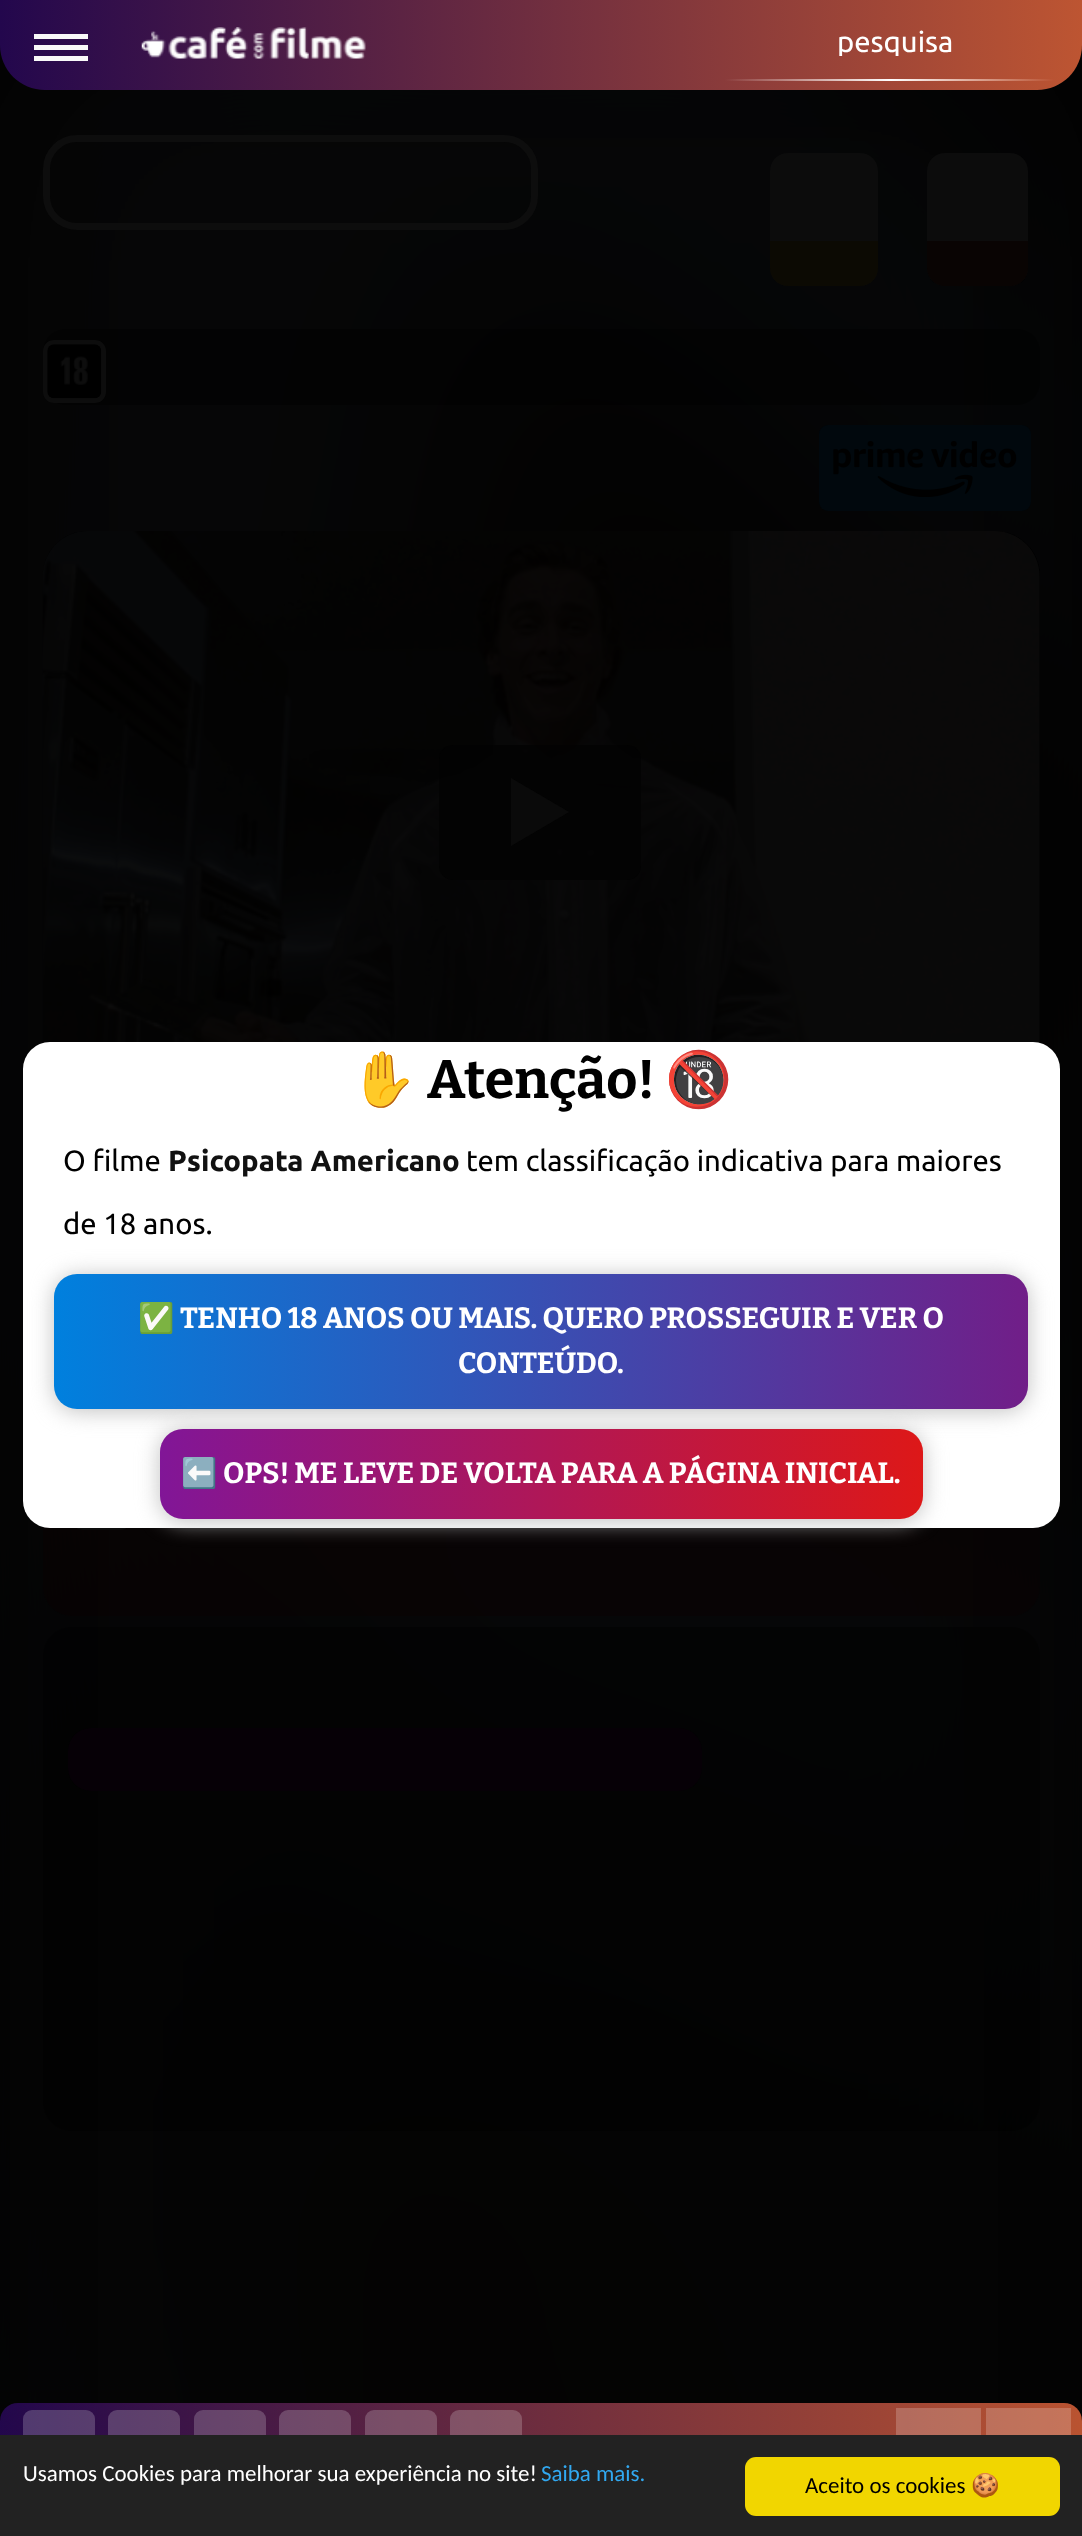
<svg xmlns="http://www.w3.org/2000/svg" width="1082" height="2536">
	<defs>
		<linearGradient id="g1" gradientUnits="userSpaceOnUse" x1="0" y1="45" x2="1082" y2="45"><stop offset="0" stop-color="#23074D" /><stop offset="1" stop-color="#BD5532" /></linearGradient>
		<linearGradient id="g2" gradientUnits="userSpaceOnUse" x1="725" y1="80" x2="1057" y2="80"><stop offset="0" stop-color="#FFFFFF" stop-opacity="0" /><stop offset="0.5" stop-color="#FFFFFF" /><stop offset="0.99" stop-color="#BA5333" /><stop offset="1" stop-color="#BA5333" stop-opacity="0" /></linearGradient>
		<clipPath id="clip1"><rect x="734" y="25" width="321" height="31" /></clipPath>
		<linearGradient id="g3" gradientUnits="userSpaceOnUse" x1="1028" y1="1341" x2="54" y2="1341"><stop offset="0" stop-color="#711E88" /><stop offset="1" stop-color="#0080DE" /></linearGradient>
		<linearGradient id="g4" gradientUnits="userSpaceOnUse" x1="160" y1="1474" x2="923" y2="1474"><stop offset="0" stop-color="#811697" /><stop offset="1" stop-color="#DD1818" /></linearGradient>
		<linearGradient id="g5" gradientUnits="userSpaceOnUse" x1="0" y1="2459" x2="1082" y2="2459"><stop offset="0" stop-color="#23074D" stop-opacity="0.98" /><stop offset="1" stop-color="#BD5532" stop-opacity="0.98" /></linearGradient>
	</defs>
	<rect width="100%" height="100%" fill="#020202" />
	<image x="0" y="45" width="1082" height="2390" href="assets/img2.png" />
	<path d="M0 0H1082V45C1082 70 1062 90 1037 90H45C20 90 0 70 0 45Z" fill="url(#g1)" />
	<rect x="34" y="45" width="54" height="5" fill="#F9F9F9" />
	<rect x="34" y="34" width="54" height="5" fill="#F9F9F9" />
	<rect x="34" y="56" width="54" height="5" fill="#F9F9F9" />
	<image x="141" y="27" width="225" height="32" href="assets/img1.png" />
	<rect x="725" y="79" width="333" height="2" fill="url(#g2)" />
	<g clip-path="url(#clip1)">
		<text x="837" y="52" font-family="Ubuntu" font-size="29.25" fill="#FFFFFF">pesquisa</text>
	</g>
	<rect x="46.5" y="138.5" width="488" height="88" rx="30.5" fill="none" stroke="#0D0D0D" stroke-width="7" />
	<rect x="770" y="153" width="108" height="133" rx="18" fill="#0D0D0D" fill-opacity="0.9" />
	<path d="M770 241H878V268C878 278 870 286 860 286H788C778 286 770 278 770 268Z" fill="#0C0A03" />
	<rect x="927" y="153" width="101" height="133" rx="18" fill="#0D0D0D" fill-opacity="0.9" />
	<path d="M927 241H1028V268C1028 278 1020 286 1010 286H945C935 286 927 278 927 268Z" fill="#090403" />
	<rect x="819" y="425" width="212" height="86" rx="9" fill="#01080D" />
	<image x="833" y="441" width="184" height="56" href="assets/img3.png" />
	<path d="M88 531H995C1020 531 1040 551 1040 576V1091H43V576C43 551 63 531 88 531Z" fill="#000000" />
	<image x="42" y="531" width="998" height="513" href="assets/img4.png" />
	<rect x="439" y="745" width="202" height="135" rx="14" fill="#030303" fill-opacity="0.8" />
	<path d="M511 846V778L569 812Z" fill="#0D0D0D" fill-opacity="0.8" />
	<rect x="43" y="1388" width="997" height="228" rx="29" fill="#0D0000" fill-opacity="0.3" />
	<rect x="74.5" y="1474.5" width="54" height="53" rx="8.5" fill="none" stroke="#0D0D0D" stroke-width="5" />
	<rect x="43" y="1627" width="997" height="504" rx="29" fill="#000000" fill-opacity="0.4" />
	<rect x="68" y="1728" width="634" height="63" rx="23" fill="#060006" />
	<rect x="43" y="329" width="997" height="76" rx="23" fill="#000000" fill-opacity="0.4" />
	<rect x="45.5" y="342.5" width="58" height="58" rx="8.5" fill="none" stroke="#0D0D0D" stroke-width="5" />
	<image x="47" y="344" width="55" height="55" href="assets/img5.png" />
	<rect x="23" y="1042" width="1037" height="486" rx="27" fill="#FFFFFF" />
	<text x="350" y="1098" font-family="Noto Color Emoji" font-size="54" font-weight="700" fill="#000000">✋</text>
	<text x="427" y="1098" font-family="Bitter" font-size="54" font-weight="700" fill="#000000">Atenção!</text>
	<text x="665" y="1098" font-family="Noto Color Emoji" font-size="54" font-weight="700" fill="#000000">🔞</text>
	<text x="63" y="1171" font-family="Ubuntu" font-size="29.25" fill="#000000">O filme</text>
	<text x="168" y="1171" font-family="Ubuntu" font-size="29.25" font-weight="700" fill="#111111">Psicopata Americano</text>
	<g font-family="Ubuntu" font-size="29.25" fill="#000000">
		<text x="466" y="1171">tem classificação indicativa para maiores</text>
		<text x="63" y="1234">de 18 anos.</text>
	</g>
	<rect x="54" y="1276" width="974" height="135" rx="23" fill="#C0C0C0" filter="blur(11px)" />
	<rect x="54" y="1274" width="974" height="135" rx="23" fill="url(#g3)" />
	<text x="138" y="1328" font-family="Noto Color Emoji" font-size="29.25" font-weight="700" fill="#FFFFFF">✅</text>
	<g font-family="Bitter" font-size="29.25" font-weight="700" fill="#FFFFFF">
		<text x="180" y="1328">TENHO 18 ANOS OU MAIS. QUERO PROSSEGUIR E VER O</text>
		<text x="458" y="1373">CONTEÚDO.</text>
	</g>
	<rect x="160" y="1431" width="763" height="90" rx="23" fill="#C0C0C0" filter="blur(11px)" />
	<rect x="160" y="1429" width="763" height="90" rx="23" fill="url(#g4)" />
	<text x="181" y="1483" font-family="Noto Color Emoji" font-size="29.25" font-weight="700" fill="#FFFFFF">⬅️</text>
	<text x="223" y="1483" font-family="Bitter" font-size="29.25" font-weight="700" fill="#FFFFFF">OPS! ME LEVE DE VOLTA PARA A PÁGINA INICIAL.</text>
	<rect x="0" y="2403" width="1082" height="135" rx="18" fill="url(#g5)" />
	<rect x="23" y="2410" width="72" height="76" rx="9" fill="#FFFFFF" fill-opacity="0.2" />
	<rect x="108" y="2410" width="72" height="76" rx="9" fill="#FFFFFF" fill-opacity="0.2" />
	<rect x="194" y="2410" width="72" height="76" rx="9" fill="#FFFFFF" fill-opacity="0.2" />
	<rect x="279" y="2410" width="72" height="76" rx="9" fill="#FFFFFF" fill-opacity="0.2" />
	<rect x="365" y="2410" width="72" height="76" rx="9" fill="#FFFFFF" fill-opacity="0.2" />
	<rect x="450" y="2410" width="72" height="76" rx="9" fill="#FFFFFF" fill-opacity="0.2" />
	<rect x="896" y="2408" width="85" height="27" fill="#FFFFFF" fill-opacity="0.2" />
	<rect x="986" y="2408" width="85" height="27" fill="#FFFFFF" fill-opacity="0.2" />
	<rect x="0" y="2435" width="1082" height="101" fill="#222222" />
	<text x="23" y="2481" font-family="Carlito" font-size="22.95" fill="#FFFFFF">Usamos Cookies para melhorar sua experiência no site!</text>
	<text x="541" y="2481" font-family="Carlito" font-size="22.95" fill="#31A8F0">Saiba mais.</text>
	<rect x="745" y="2457" width="315" height="59" rx="11" fill="#F1D600" />
	<text x="805" y="2493" font-family="Carlito" font-size="22.95" fill="#000000">Aceito os cookies</text>
	<text x="971" y="2493" font-family="Noto Color Emoji" font-size="22.95" fill="#000000">🍪</text>
</svg>
